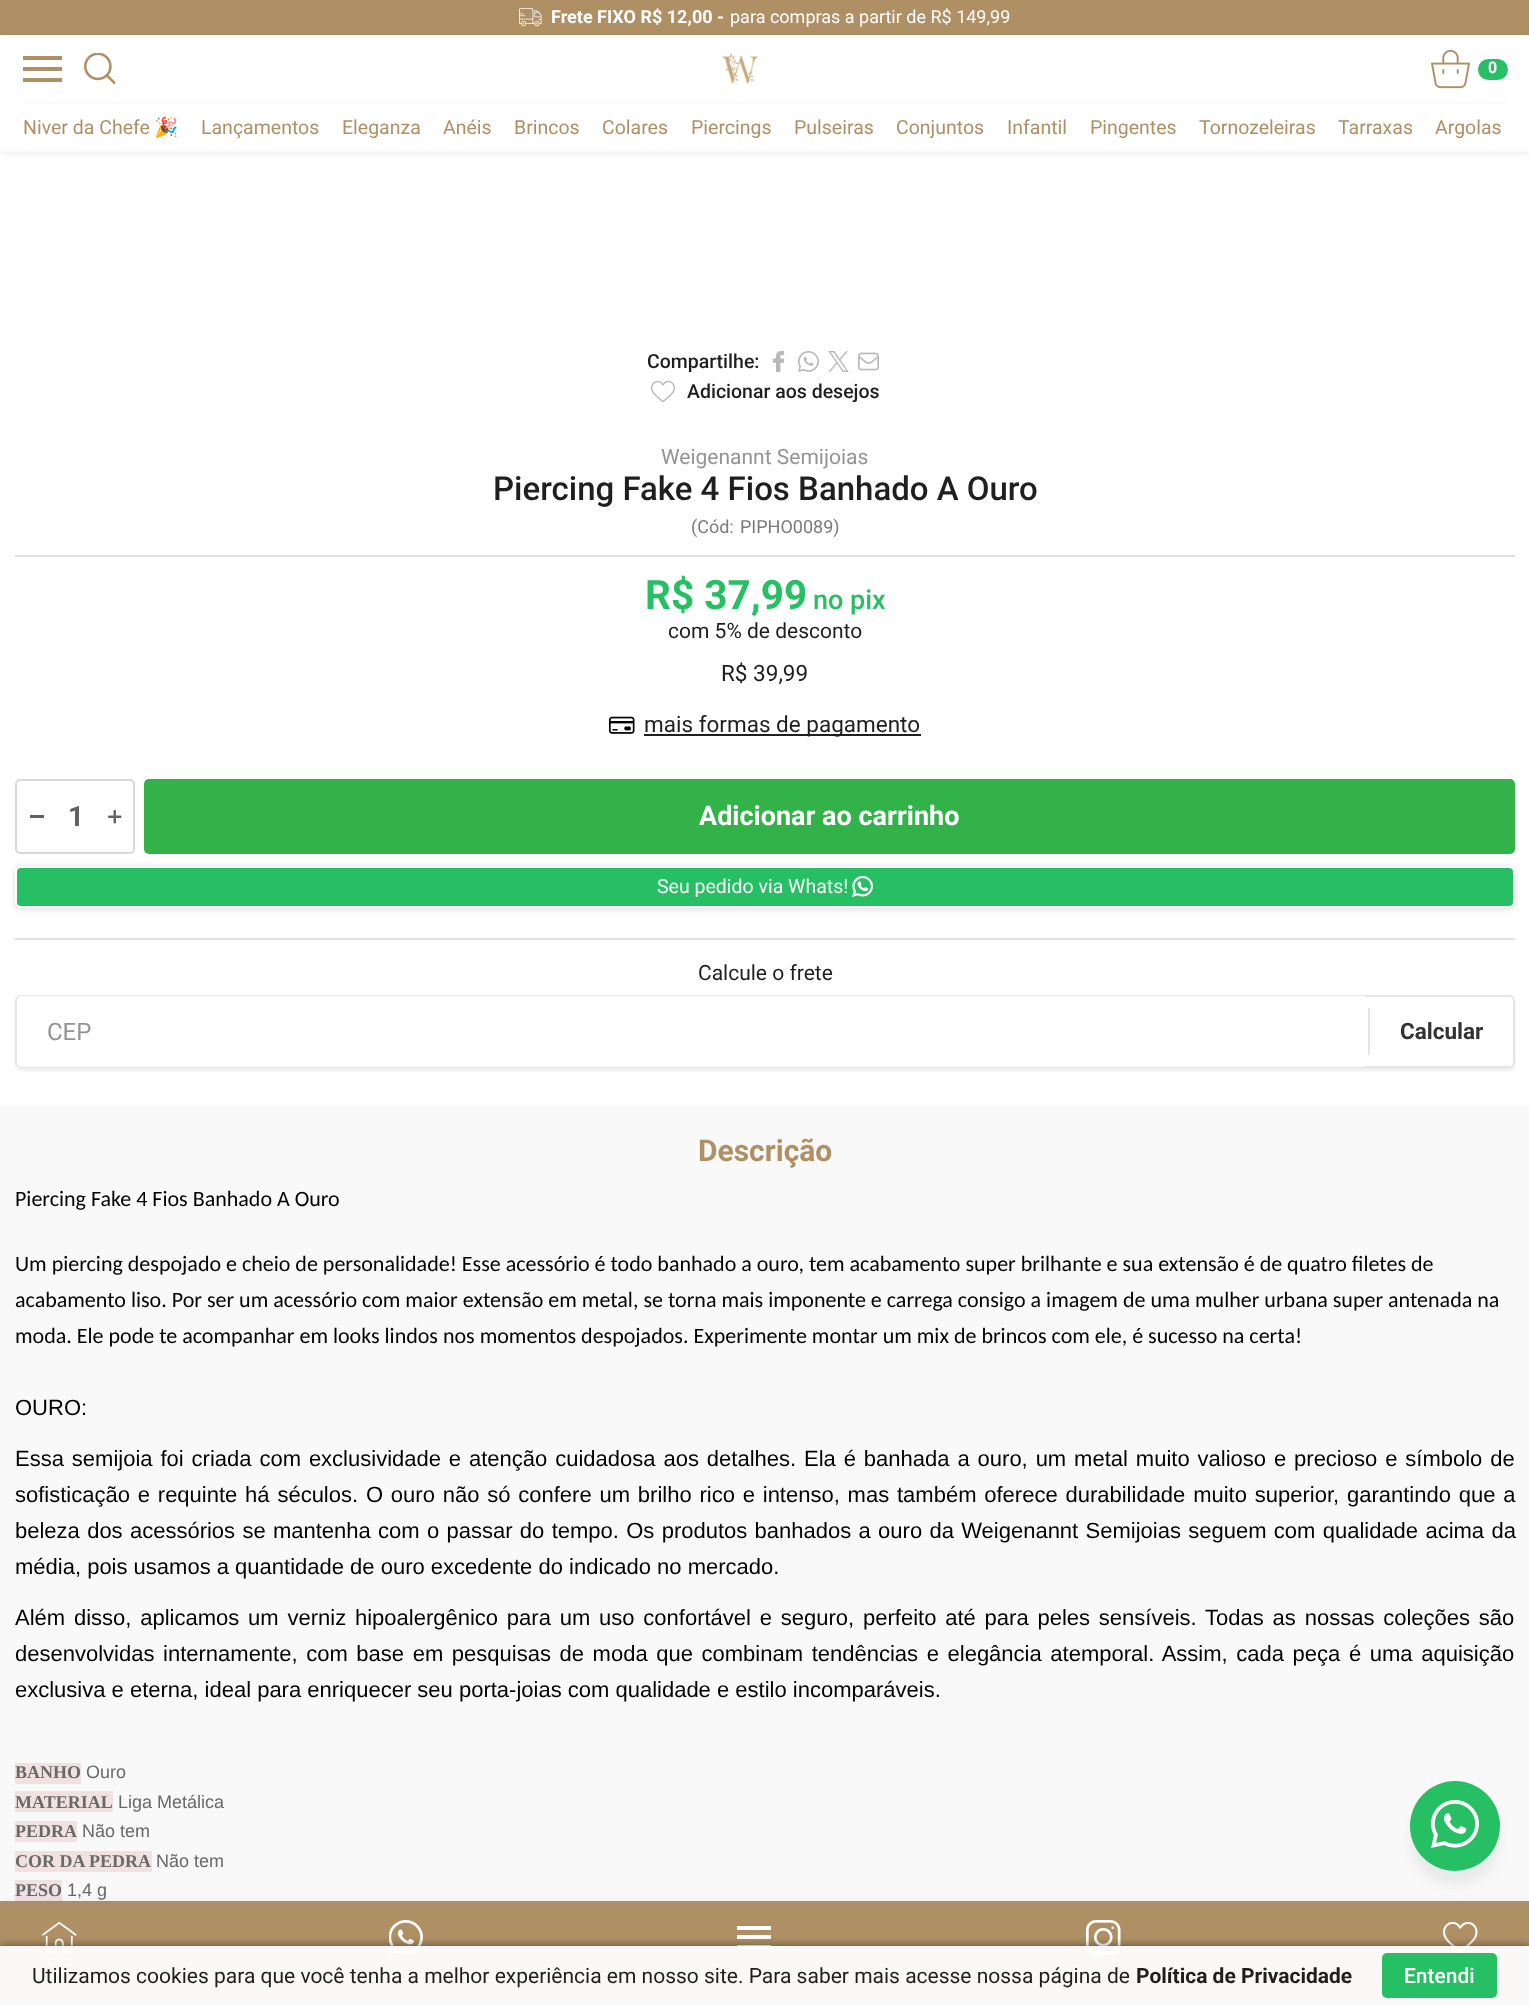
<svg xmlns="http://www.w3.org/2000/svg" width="1529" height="2005">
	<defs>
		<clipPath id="clip1"><path d="M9 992H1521V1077H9ZM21 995H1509C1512.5 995 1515 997.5 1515 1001V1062C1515 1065.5 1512.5 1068 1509 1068H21C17.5 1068 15 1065.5 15 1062V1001C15 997.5 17.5 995 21 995Z" clip-rule="evenodd" /></clipPath>
		<clipPath id="clip2"><rect x="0" y="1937" width="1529" height="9" /></clipPath>
	</defs>
	<rect width="100%" height="100%" fill="#FFFFFF" />
	<rect x="0" y="0" width="1529" height="35" fill="#AF9065" />
	<image x="519" y="8" width="23" height="19" href="assets/img1.png" />
	<text x="551" y="23" font-family="Roboto" font-size="18" font-weight="700" fill="#FFFFFF">Frete FIXO R$ 12,00 -</text>
	<text x="730" y="23" font-family="Roboto" font-size="18" fill="#FFFFFF">para compras a partir de R$ 149,99</text>
	<rect x="0" y="36" width="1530" height="117" fill="#525252" fill-opacity="0.13" filter="blur(3px)" />
	<rect x="0" y="35" width="1529" height="115" fill="#FFFFFF" />
	<rect x="0" y="150" width="1529" height="2" fill="#FCFCFC" />
	<rect x="23" y="78" width="39" height="4" fill="#AF9065" />
	<rect x="23" y="67" width="39" height="4" fill="#AF9065" />
	<rect x="23" y="56" width="39" height="4" fill="#AF9065" />
	<image x="84" y="53" width="32" height="31" href="assets/img2.png" />
	<image x="722" y="52" width="38" height="33" href="assets/img3.png" />
	<image x="1431" y="50" width="39" height="39" href="assets/img4.png" />
	<rect x="1478" y="59" width="30" height="21" rx="10.5" fill="#27BF64" />
	<text x="1488" y="73" font-family="Roboto" font-size="16" font-weight="700" fill="#FFFFFF">0</text>
	<rect x="23" y="102" width="1485" height="2" fill="#FCFCFC" />
	<text x="23" y="134" font-family="Roboto" font-size="19.5" fill="#AF9065">Niver da Chefe</text>
	<text x="154" y="134" font-family="Noto Color Emoji" font-size="19.5" fill="#AF9065">🎉</text>
	<g font-family="Roboto" font-size="19.5" fill="#AF9065">
		<text x="201" y="134">Lançamentos</text>
		<text x="342" y="134">Eleganza</text>
		<text x="443" y="134">Anéis</text>
		<text x="514" y="134">Brincos</text>
		<text x="602" y="134">Colares</text>
		<text x="691" y="134">Piercings</text>
		<text x="794" y="134">Pulseiras</text>
		<text x="896" y="134">Conjuntos</text>
		<text x="1007" y="134">Infantil</text>
		<text x="1090" y="134">Pingentes</text>
		<text x="1199" y="134">Tornozeleiras</text>
		<text x="1338" y="134">Tarraxas</text>
		<text x="1435" y="134">Argolas</text>
	</g>
	<text x="647" y="368" font-family="Roboto" font-size="19.5" font-weight="500" fill="#201F1F">Compartilhe:</text>
	<image x="772" y="351" width="13" height="21" href="assets/img5.png" />
	<image x="798" y="351" width="21" height="21" href="assets/img6.png" />
	<image x="828" y="351" width="21" height="21" href="assets/img7.png" />
	<image x="858" y="352" width="21" height="19" href="assets/img8.png" />
	<image x="651" y="380" width="24" height="23" href="assets/img9.png" />
	<text x="687" y="398" font-family="Roboto" font-size="19.5" font-weight="500" fill="#201F1F">Adicionar aos desejos</text>
	<rect x="15" y="555" width="1500" height="2" fill="#E1E1E1" />
	<text x="661" y="464" font-family="Roboto" font-size="21" fill="#949494">Weigenannt Semijoias</text>
	<text x="493" y="500" font-family="Roboto" font-size="33" font-weight="500" fill="#201F1F">Piercing Fake 4 Fios Banhado A Ouro</text>
	<g font-family="Roboto" font-size="18" fill="#7B7B7B">
		<text x="691" y="533">(Cód:</text>
		<text x="740" y="533">PIPHO0089)</text>
	</g>
	<text x="645" y="609" font-family="Roboto" font-size="40.5" font-weight="700" fill="#27BF64">R$ 37,99</text>
	<text x="813" y="609" font-family="Roboto" font-size="27" font-weight="500" fill="#27BF64">no pix</text>
	<text x="668" y="638" font-family="Roboto" font-size="21" fill="#201F1F">com 5% de desconto</text>
	<text x="721" y="681" font-family="Roboto" font-size="22.5" fill="#201F1F">R$ 39,99</text>
	<image x="609" y="716" width="26" height="18" href="assets/img10.png" />
	<rect x="644" y="734" width="277" height="2" fill="#201F1F" />
	<text x="644" y="732" font-family="Roboto" font-size="22.5" fill="#201F1F">mais formas de pagamento</text>
	<rect x="16" y="780" width="118" height="73" rx="4" fill="none" stroke="#D8D8D8" stroke-width="2" />
	<rect x="30" y="815" width="14" height="3" fill="#616161" />
	<text x="68" y="826" font-family="Roboto" font-size="28" font-weight="700" fill="#616161">1</text>
	<image x="108" y="810" width="14" height="14" href="assets/img11.png" />
	<rect x="144" y="779" width="1371" height="75" rx="5" fill="#33B249" />
	<text x="699" y="825" font-family="Roboto" font-size="27" font-weight="700" fill="#FFFFFF">Adicionar ao carrinho</text>
	<rect x="15" y="867" width="1500" height="42" rx="6" fill="#B1B1B1" fill-opacity="0.46" filter="blur(3px)" />
	<rect x="16" y="867" width="1498" height="40" rx="5" fill="#27BF64" stroke="#FFFFFF" stroke-width="2" />
	<text x="657" y="893" font-family="Roboto" font-size="19.5" fill="#FFFFFF">Seu pedido via Whats!</text>
	<image x="852" y="876" width="21" height="21" href="assets/img12.png" />
	<rect x="15" y="938" width="1500" height="2" fill="#E1E1E1" />
	<text x="698" y="980" font-family="Roboto" font-size="21" fill="#201F1F">Calcule o frete</text>
	<g clip-path="url(#clip1)">
		<rect x="15" y="998" width="1500" height="73" rx="6" fill="#CDCDCD" fill-opacity="0.35" filter="blur(1.5px)" />
	</g>
	<rect x="16" y="996" width="1498" height="71" rx="5" fill="none" stroke="#E5E5E5" stroke-width="2" />
	<rect x="17" y="996" width="1351" height="71" rx="5" fill="#FFFFFF" />
	<text x="47" y="1040" font-family="Roboto" font-size="24" fill="#949494">CEP</text>
	<rect x="1368" y="1008" width="2" height="47" fill="#E5E5E5" />
	<text x="1400" y="1039" font-family="Roboto" font-size="22.5" font-weight="700" fill="#333333">Calcular</text>
	<rect x="0" y="1106" width="1529" height="795" fill="#F9F9F9" />
	<text x="698" y="1161" font-family="Roboto" font-size="30" font-weight="700" fill="#AF9065">Descrição</text>
	<g font-family="Carlito" font-size="22" fill="#000000">
		<text x="15" y="1206">Piercing Fake 4 Fios Banhado A Ouro</text>
		<text x="15" y="1271">Um piercing despojado e cheio de personalidade! Esse acessório é todo banhado a ouro, tem acabamento super brilhante e sua extensão é de quatro filetes de</text>
		<text x="15" y="1307">acabamento liso. Por ser um acessório com maior extensão em metal, se torna mais imponente e carrega consigo a imagem de uma mulher urbana super antenada na</text>
		<text x="15" y="1343">moda. Ele pode te acompanhar em looks lindos nos momentos despojados. Experimente montar um mix de brincos com ele, é sucesso na certa!</text>
	</g>
	<g font-family="Liberation Sans" font-size="22" fill="#000000">
		<text x="15" y="1415">OURO:</text>
		<text x="15" y="1466" word-spacing="1.8">Essa semijoia foi criada com exclusividade e atenção cuidadosa aos detalhes. Ela é banhada a ouro, um metal muito valioso e precioso e símbolo de</text>
		<text x="15" y="1502" word-spacing="1.7">sofisticação e requinte há séculos. O ouro não só confere um brilho rico e intenso, mas também oferece durabilidade muito superior, garantindo que a</text>
		<text x="15" y="1538" word-spacing="1.2">beleza dos acessórios se mantenha com o passar do tempo. Os produtos banhados a ouro da Weigenannt Semijoias seguem com qualidade acima da</text>
		<text x="15" y="1574">média, pois usamos a quantidade de ouro excedente do indicado no mercado.</text>
		<text x="15" y="1625" word-spacing="2.7">Além disso, aplicamos um verniz hipoalergênico para um uso confortável e seguro, perfeito até para peles sensíveis. Todas as nossas coleções são</text>
		<text x="15" y="1661" word-spacing="2.5">desenvolvidas internamente, com base em pesquisas de moda que combinam tendências e elegância atemporal. Assim, cada peça é uma aquisição</text>
		<text x="15" y="1697">exclusiva e eterna, ideal para enriquecer seu porta-joias com qualidade e estilo incomparáveis.</text>
	</g>
	<rect x="15" y="1763" width="66" height="21" fill="#F1E1E1" />
	<text x="15" y="1778" font-family="Liberation Serif" font-size="18" font-weight="700" fill="#696969">BANHO</text>
	<text x="86" y="1778" font-family="Liberation Sans" font-size="18" fill="#696969">Ouro</text>
	<rect x="15" y="1791" width="98" height="21" fill="#F1E1E1" />
	<text x="15" y="1808" font-family="Liberation Serif" font-size="18" font-weight="700" fill="#696969">MATERIAL</text>
	<text x="118" y="1808" font-family="Liberation Sans" font-size="18" fill="#696969">Liga Metálica</text>
	<rect x="15" y="1821" width="62" height="21" fill="#F1E1E1" />
	<text x="15" y="1837" font-family="Liberation Serif" font-size="18" font-weight="700" fill="#696969">PEDRA</text>
	<text x="82" y="1837" font-family="Liberation Sans" font-size="18" fill="#696969">Não tem</text>
	<rect x="15" y="1851" width="137" height="21" fill="#F1E1E1" />
	<text x="15" y="1867" font-family="Liberation Serif" font-size="18" font-weight="700" fill="#696969">COR DA PEDRA</text>
	<text x="156" y="1867" font-family="Liberation Sans" font-size="18" fill="#696969">Não tem</text>
	<rect x="15" y="1880" width="47" height="21" fill="#F1E1E1" />
	<text x="15" y="1896" font-family="Liberation Serif" font-size="18" font-weight="700" fill="#696969">PESO</text>
	<text x="67" y="1896" font-family="Liberation Sans" font-size="18" fill="#696969">1,4 g</text>
	<rect x="1410" y="1796" width="90" height="90" rx="45" fill="#676767" fill-opacity="0.1" filter="blur(6px)" />
	<circle cx="1455" cy="1826" r="45" fill="#27BF64" />
	<image x="1431" y="1800" width="48" height="48" href="assets/img13.png" />
	<rect x="0" y="1901" width="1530" height="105" fill="#525252" fill-opacity="0.08" filter="blur(3px)" />
	<rect x="0" y="1903" width="1529" height="102" fill="#AF9065" />
	<rect x="0" y="1901" width="1529" height="2" fill="#A79070" />
	<image x="42" y="1921" width="35" height="32" href="assets/img14.png" />
	<image x="389" y="1920" width="34" height="35" href="assets/img15.png" />
	<rect x="737" y="1945" width="34" height="4" fill="#FFFFFF" />
	<rect x="737" y="1935" width="34" height="4" fill="#FFFFFF" />
	<rect x="737" y="1926" width="34" height="4" fill="#FFFFFF" />
	<image x="1086" y="1920" width="35" height="35" href="assets/img16.png" />
	<image x="1443" y="1921" width="35" height="32" href="assets/img17.png" />
	<g clip-path="url(#clip2)">
		<rect x="0" y="1946" width="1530" height="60" fill="#000000" fill-opacity="0.5" filter="blur(5px)" />
	</g>
	<rect x="0" y="1946" width="1529" height="59" fill="#FFFFFF" fill-opacity="0.95" />
	<text x="32" y="1983" font-family="Roboto" font-size="21" fill="#201F1F">Utilizamos cookies para que você tenha a melhor experiência em nosso site. Para saber mais acesse nossa página de</text>
	<text x="1136" y="1983" font-family="Roboto" font-size="21" font-weight="700" fill="#201F1F">Política de Privacidade</text>
	<rect x="1382" y="1953" width="115" height="45" rx="5" fill="#27BF64" />
	<text x="1404" y="1983" font-family="Roboto" font-size="21" font-weight="500" fill="#FFFFFF">Entendi</text>
</svg>
